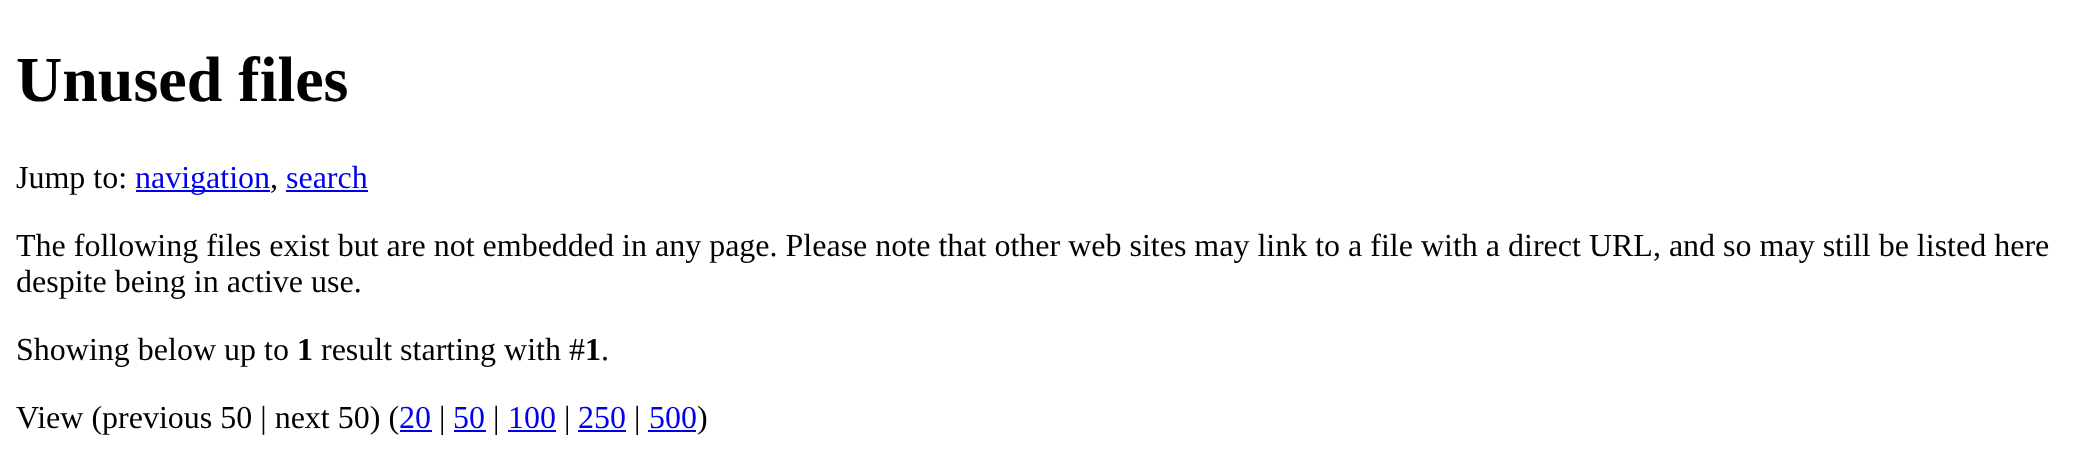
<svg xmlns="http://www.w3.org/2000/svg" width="2074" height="466">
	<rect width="100%" height="100%" fill="#FFFFFF" />
	<text x="16" y="101" font-family="Liberation Serif" font-size="64" font-weight="700" fill="#000000">Unused files</text>
	<text x="16" y="188" font-family="Liberation Serif" font-size="32" fill="#000000">Jump to:</text>
	<rect x="136" y="190" width="134" height="2" fill="#0000EE" />
	<text x="135" y="188" font-family="Liberation Serif" font-size="32" fill="#0000EE">navigation</text>
	<text x="270" y="188" font-family="Liberation Serif" font-size="32" fill="#000000">,</text>
	<text x="286" y="188" font-family="Liberation Serif" font-size="32" fill="#0000EE">search</text>
	<rect x="286" y="190" width="82" height="2" fill="#0000EE" />
	<g font-family="Liberation Serif" font-size="32" fill="#000000">
		<text x="16" y="256">The following files exist but are not embedded in any page. Please note that other web sites may link to a file with a direct URL, and so may still be listed here</text>
		<text x="16" y="292">despite being in active use.</text>
		<text x="16" y="360">Showing below up to</text>
	</g>
	<text x="297" y="360" font-family="Liberation Serif" font-size="32" font-weight="700" fill="#000000">1</text>
	<text x="321" y="360" font-family="Liberation Serif" font-size="32" fill="#000000">result starting with #</text>
	<text x="585" y="360" font-family="Liberation Serif" font-size="32" font-weight="700" fill="#000000">1</text>
	<g font-family="Liberation Serif" font-size="32" fill="#000000">
		<text x="601" y="360">.</text>
		<text x="16" y="428">View (previous 50 | next 50) (</text>
	</g>
	<text x="399" y="428" font-family="Liberation Serif" font-size="32" fill="#0000EE">20</text>
	<rect x="400" y="430" width="32" height="2" fill="#0000EE" />
	<text x="439" y="428" font-family="Liberation Serif" font-size="32" fill="#000000">|</text>
	<text x="453" y="428" font-family="Liberation Serif" font-size="32" fill="#0000EE">50</text>
	<rect x="454" y="430" width="32" height="2" fill="#0000EE" />
	<text x="493" y="428" font-family="Liberation Serif" font-size="32" fill="#000000">|</text>
	<text x="508" y="428" font-family="Liberation Serif" font-size="32" fill="#0000EE">100</text>
	<rect x="508" y="430" width="48" height="2" fill="#0000EE" />
	<text x="564" y="428" font-family="Liberation Serif" font-size="32" fill="#000000">|</text>
	<text x="578" y="428" font-family="Liberation Serif" font-size="32" fill="#0000EE">250</text>
	<rect x="578" y="430" width="48" height="2" fill="#0000EE" />
	<text x="634" y="428" font-family="Liberation Serif" font-size="32" fill="#000000">|</text>
	<text x="649" y="428" font-family="Liberation Serif" font-size="32" fill="#0000EE">500</text>
	<rect x="648" y="430" width="48" height="2" fill="#0000EE" />
	<text x="697" y="428" font-family="Liberation Serif" font-size="32" fill="#000000">)</text>
</svg>
